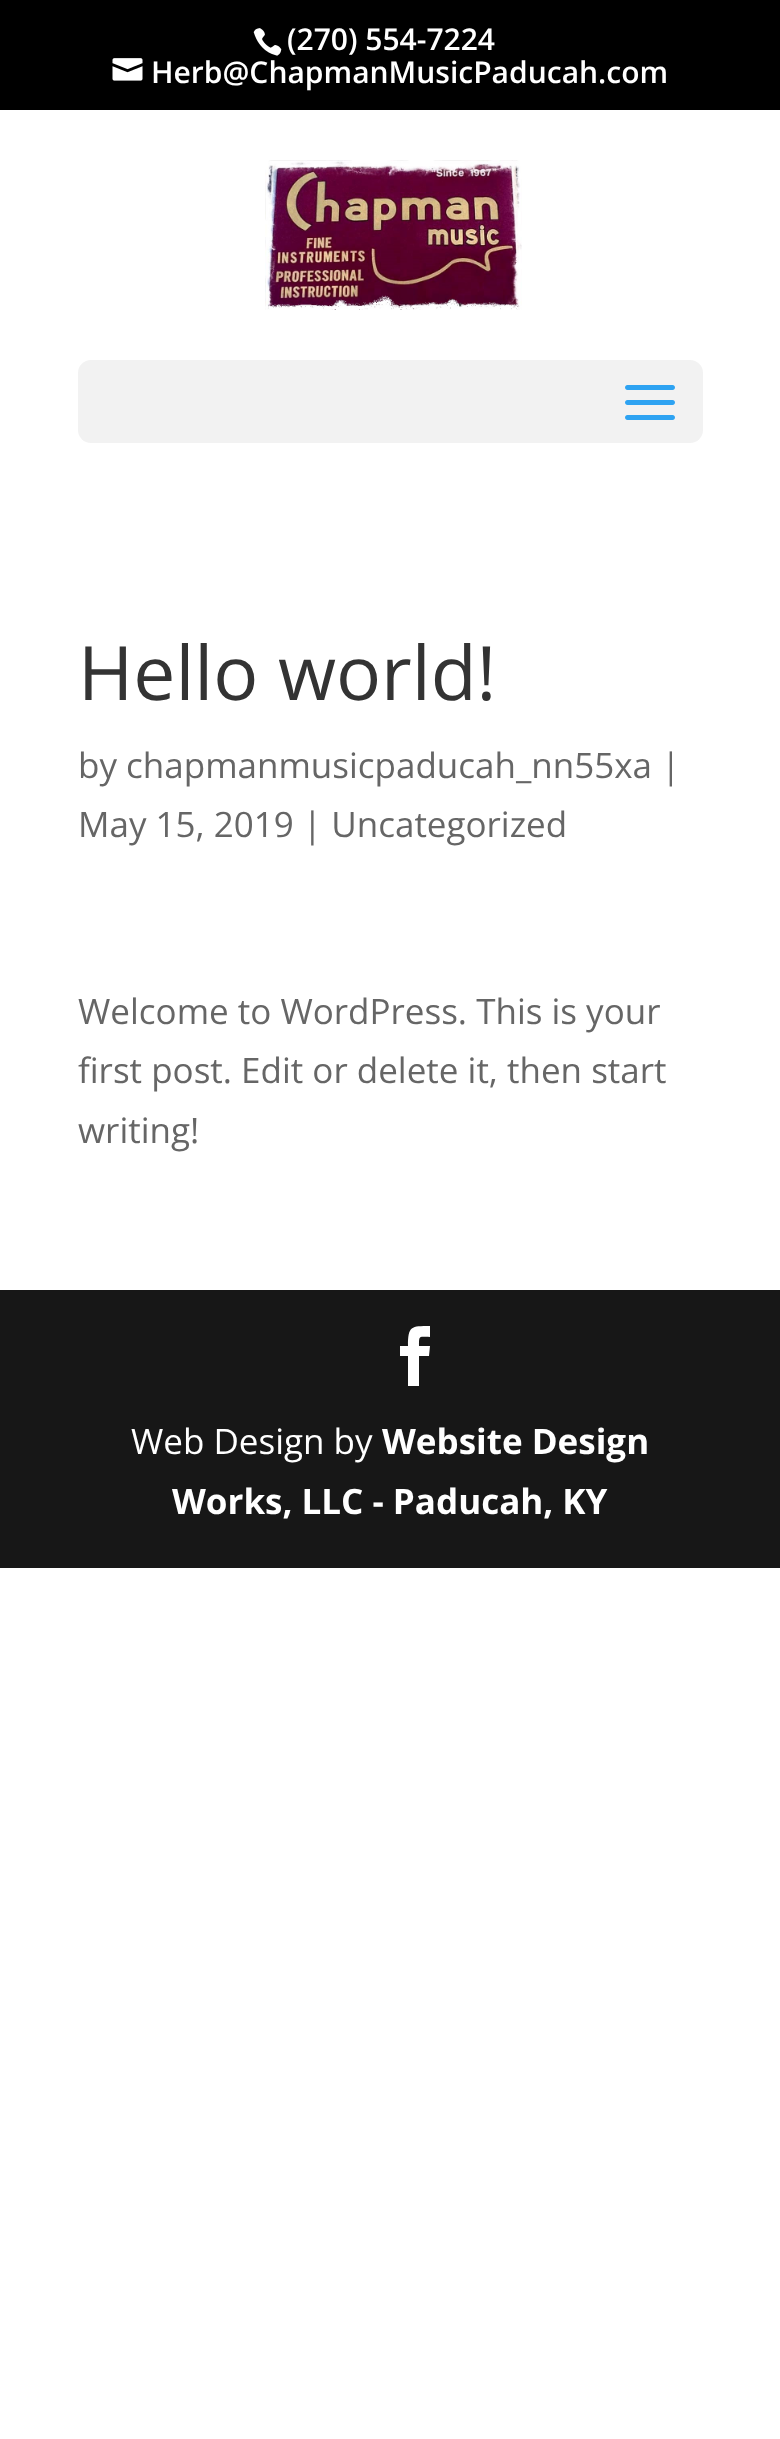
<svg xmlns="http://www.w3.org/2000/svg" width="780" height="2439">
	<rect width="100%" height="100%" fill="#FFFFFF" />
	<rect x="0" y="0" width="780" height="110" fill="#000000" />
	<image x="253" y="28" width="29" height="28" href="assets/img1.png" />
	<text x="287" y="50" font-family="Open Sans" font-size="30" font-weight="600" fill="#FFFFFF">(270) 554-7224</text>
	<image x="112" y="58" width="31" height="23" href="assets/img2.png" />
	<text x="151" y="83" font-family="Open Sans" font-size="30" font-weight="600" fill="#FFFFFF">Herb@ChapmanMusicPaducah.com</text>
	<image x="265" y="160" width="257" height="150" href="assets/img3.png" />
	<rect x="78" y="360" width="625" height="83" rx="13" fill="#F2F2F2" />
	<image x="625" y="385" width="50" height="35" href="assets/img4.png" />
	<text x="78" y="700" font-family="Open Sans" font-size="75" fill="#333333">Hello world!</text>
	<g font-family="Open Sans" font-size="35" fill="#666666">
		<text x="78" y="778">by chapmanmusicpaducah_nn55xa |</text>
		<text x="78" y="837">May 15, 2019 | Uncategorized</text>
		<text x="78" y="1024">Welcome to WordPress. This is your</text>
		<text x="78" y="1083">first post. Edit or delete it, then start</text>
		<text x="78" y="1143">writing!</text>
	</g>
	<rect x="0" y="1290" width="780" height="278" fill="#171717" />
	<path d="M408 1386H419V1356H429L430 1346H419C419 1335 419 1337 430 1337V1326C411 1326 408 1326 408 1346H400V1356H408Z" fill="#FFFFFF" />
	<text x="131" y="1454" font-family="Open Sans" font-size="35" fill="#FFFFFF">Web Design by</text>
	<g font-family="Open Sans" font-size="35" font-weight="700" fill="#FFFFFF">
		<text x="382" y="1454">Website Design</text>
		<text x="172" y="1514">Works, LLC - Paducah, KY</text>
	</g>
</svg>
